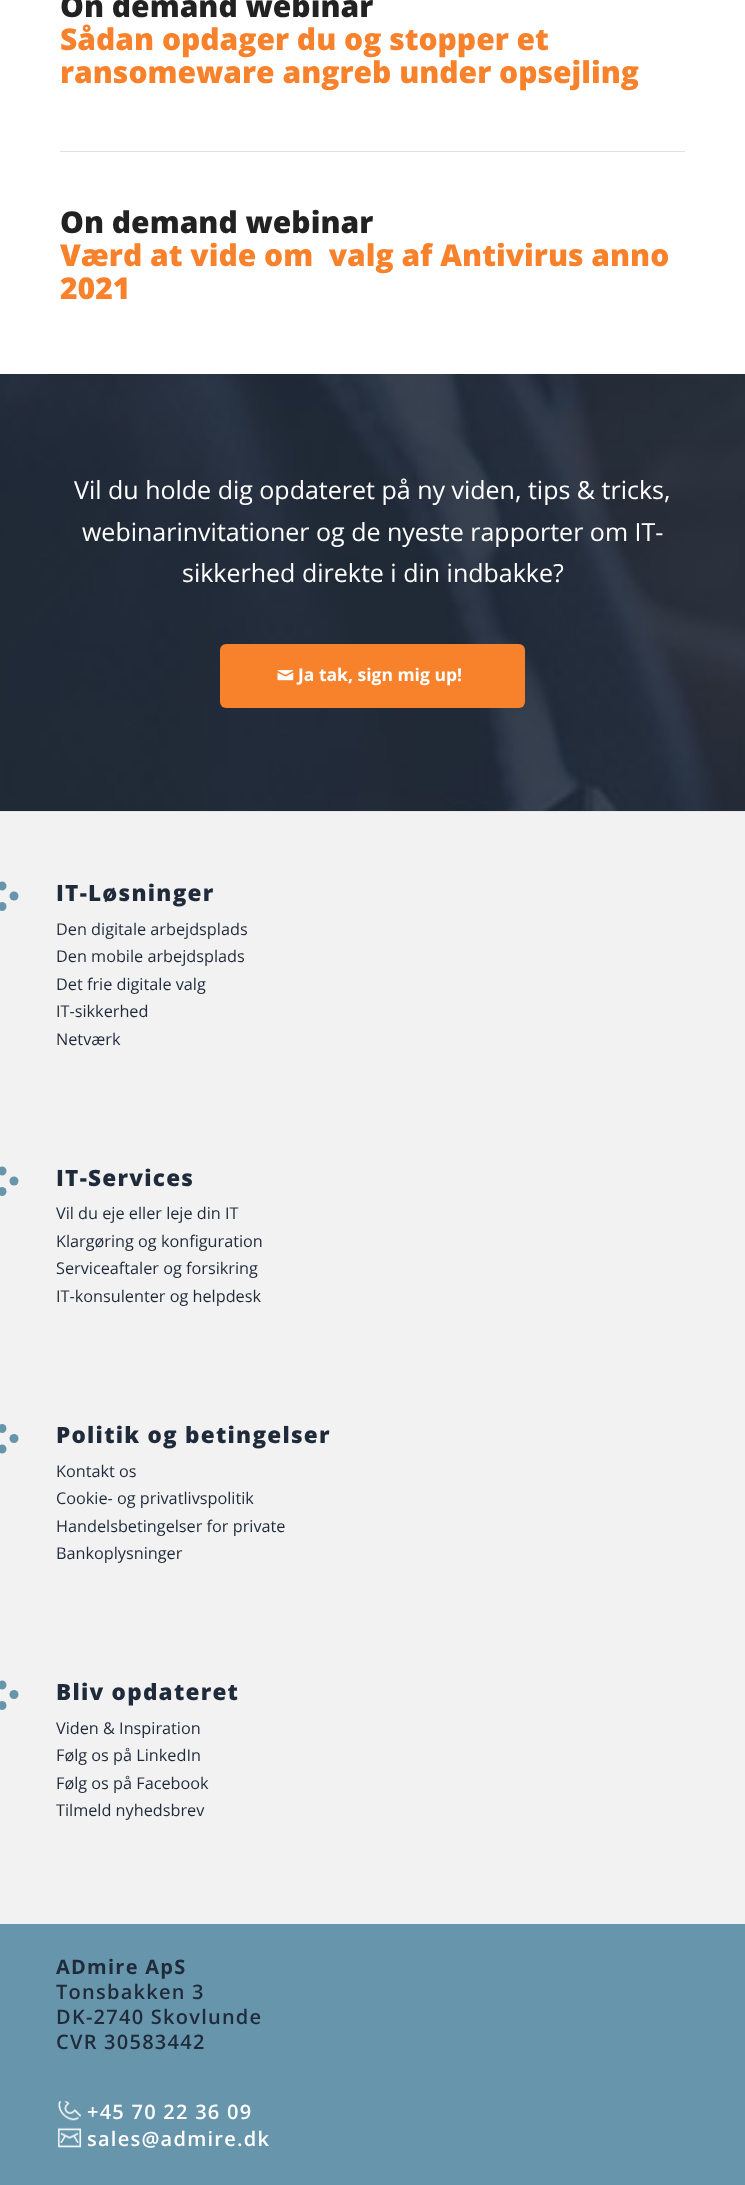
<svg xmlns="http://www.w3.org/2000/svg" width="745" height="2185">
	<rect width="100%" height="100%" fill="#FFFFFF" />
	<text x="60" y="17" font-family="Open Sans" font-size="30" font-weight="800" fill="#222222">On demand webinar</text>
	<g font-family="Open Sans" font-size="30" font-weight="800" fill="#F8812B">
		<text x="60" y="50">Sådan opdager du og stopper et</text>
		<text x="60" y="83">ransomeware angreb under opsejling</text>
	</g>
	<rect x="60" y="151" width="625" height="1" fill="#E1E1E1" />
	<text x="60" y="233" font-family="Open Sans" font-size="30" font-weight="800" fill="#222222">On demand webinar</text>
	<g font-family="Open Sans" font-size="30" font-weight="800" fill="#F8812B">
		<text x="60" y="266" xml:space="preserve">Værd at vide om  valg af Antivirus anno</text>
		<text x="60" y="299">2021</text>
	</g>
	<image x="0" y="374" width="745" height="437" href="assets/img1.png" />
	<g font-family="Open Sans" font-size="25" fill="#FFFFFF">
		<text x="74" y="499">Vil du holde dig opdateret på ny viden, tips &amp; tricks,</text>
		<text x="82" y="541">webinarinvitationer og de nyeste rapporter om IT-</text>
		<text x="182" y="582">sikkerhed direkte i din indbakke?</text>
	</g>
	<rect x="220" y="644" width="305" height="64" rx="6" fill="#F8812B" />
	<rect x="522" y="706" width="1" height="1" fill="#F8812B" />
	<image x="277" y="670" width="17" height="11" href="assets/img2.png" />
	<text x="298" y="681" font-family="Open Sans" font-size="17.5" font-weight="700" fill="#FFFFFF">Ja tak, sign mig up!</text>
	<rect x="0" y="812" width="745" height="1112" fill="#F2F2F2" />
	<rect x="0" y="811" width="745" height="1" fill="#E6E6E6" />
	<circle cx="2" cy="886" r="4.5" fill="#6795AC" />
	<circle cx="2" cy="906.5" r="4.5" fill="#6795AC" />
	<circle cx="14" cy="896" r="4.5" fill="#6795AC" />
	<text x="56" y="901" font-family="Open Sans" font-size="22.5" font-weight="800" letter-spacing="1.25" fill="#1F2A3A">IT-Løsninger</text>
	<g font-family="Open Sans" font-size="16.25" fill="#1F2A3A">
		<text x="56" y="935">Den digitale arbejdsplads</text>
		<text x="56" y="962">Den mobile arbejdsplads</text>
		<text x="56" y="990">Det frie digitale valg</text>
		<text x="56" y="1017">IT-sikkerhed</text>
		<text x="56" y="1045">Netværk</text>
	</g>
	<circle cx="2" cy="1171" r="4.5" fill="#6795AC" />
	<circle cx="2" cy="1191.5" r="4.5" fill="#6795AC" />
	<circle cx="14" cy="1181" r="4.5" fill="#6795AC" />
	<text x="56" y="1186" font-family="Open Sans" font-size="22.5" font-weight="800" letter-spacing="1.25" fill="#1F2A3A">IT-Services</text>
	<g font-family="Open Sans" font-size="16.25" fill="#1F2A3A">
		<text x="56" y="1219">Vil du eje eller leje din IT</text>
		<text x="56" y="1247">Klargøring og konfiguration</text>
		<text x="56" y="1274">Serviceaftaler og forsikring</text>
		<text x="56" y="1302">IT-konsulenter og helpdesk</text>
	</g>
	<circle cx="2" cy="1428.5" r="4.5" fill="#6795AC" />
	<circle cx="2" cy="1449" r="4.5" fill="#6795AC" />
	<circle cx="14" cy="1438.5" r="4.5" fill="#6795AC" />
	<text x="56" y="1443" font-family="Open Sans" font-size="22.5" font-weight="800" letter-spacing="1.25" fill="#1F2A3A">Politik og betingelser</text>
	<g font-family="Open Sans" font-size="16.25" fill="#1F2A3A">
		<text x="56" y="1477">Kontakt os</text>
		<text x="56" y="1504">Cookie- og privatlivspolitik</text>
		<text x="56" y="1532">Handelsbetingelser for private</text>
		<text x="56" y="1559">Bankoplysninger</text>
	</g>
	<circle cx="2" cy="1685" r="4.5" fill="#6795AC" />
	<circle cx="2" cy="1705.5" r="4.5" fill="#6795AC" />
	<circle cx="14" cy="1694.5" r="4.5" fill="#6795AC" />
	<text x="56" y="1700" font-family="Open Sans" font-size="22.5" font-weight="800" letter-spacing="1.25" fill="#1F2A3A">Bliv opdateret</text>
	<g font-family="Open Sans" font-size="16.25" fill="#1F2A3A">
		<text x="56" y="1734">Viden &amp; Inspiration</text>
		<text x="56" y="1761">Følg os på LinkedIn</text>
		<text x="56" y="1789">Følg os på Facebook</text>
		<text x="56" y="1816">Tilmeld nyhedsbrev</text>
	</g>
	<rect x="0" y="1924" width="745" height="261" fill="#6795AC" />
	<text x="56" y="1974" font-family="Open Sans" font-size="20" font-weight="700" letter-spacing="1.25" fill="#1F2A3A">ADmire ApS</text>
	<g font-family="Open Sans" font-size="20" font-weight="600" letter-spacing="1.25" fill="#1F2A3A">
		<text x="56" y="1999">Tonsbakken 3</text>
		<text x="56" y="2024">DK-2740 Skovlunde</text>
		<text x="56" y="2049">CVR 30583442</text>
	</g>
	<image x="58" y="2101" width="24" height="20" href="assets/img3.png" />
	<text x="87" y="2119" font-family="Open Sans" font-size="20" font-weight="600" letter-spacing="1.25" fill="#FFFFFF">+45 70 22 36 09</text>
	<image x="57" y="2127" width="25" height="21" href="assets/img4.png" />
	<text x="87" y="2146" font-family="Open Sans" font-size="20" font-weight="600" letter-spacing="1.25" fill="#FFFFFF">sales@admire.dk</text>
</svg>
